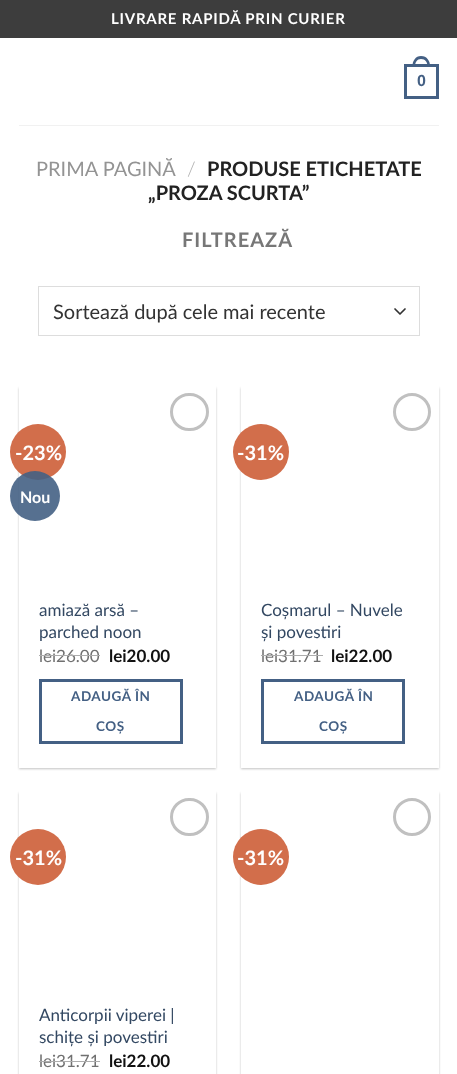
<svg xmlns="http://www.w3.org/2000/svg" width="457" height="1074">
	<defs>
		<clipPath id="clip1"><path d="M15 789H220V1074H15ZM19 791H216V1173H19Z" clip-rule="evenodd" /></clipPath>
	</defs>
	<rect width="100%" height="100%" fill="#FFFFFF" />
	<rect x="0" y="0" width="457" height="38" fill="#3D3D3D" />
	<text x="111" y="24" font-family="Lato" font-size="15" font-weight="700" letter-spacing="0.75" fill="#FFFFFF">LIVRARE RAPIDĂ PRIN CURIER</text>
	<rect x="405.5" y="65.5" width="32" height="32" fill="none" stroke="#446084" stroke-width="3" />
	<path d="M421 56C427 56 430 61 430 66H412.5C412.5 61 415.5 56 421 56ZM421 59C425.5 59 427.5 62.5 427.5 66H415C415 62.5 417 59 421 59Z" fill="#446084" fill-rule="evenodd" />
	<text x="417" y="86" font-family="Liberation Sans" font-size="16" font-weight="700" fill="#446084">0</text>
	<rect x="19" y="125" width="420" height="1" fill="#F1F1F1" />
	<text x="36" y="176" font-family="Lato" font-size="20" fill="#949494">PRIMA PAGINĂ</text>
	<text x="187" y="176" font-family="Lato" font-size="20" font-weight="300" fill="#B2B2B2">/</text>
	<g font-family="Lato" font-size="20" font-weight="700" fill="#222222">
		<text x="207" y="176">PRODUSE ETICHETATE</text>
		<text x="148" y="200">„PROZA SCURTA”</text>
	</g>
	<text x="182" y="247" font-family="Lato" font-size="20" font-weight="700" letter-spacing="1" fill="#777777">FILTREAZĂ</text>
	<path d="M395 309L400 314L405 309" fill="none" stroke="#333333" stroke-width="1.7" stroke-linecap="round" stroke-linejoin="round" />
	<rect x="38.5" y="286.5" width="381" height="49" fill="none" stroke="#DDDDDD" />
	<text x="53" y="319" font-family="Lato" font-size="20" fill="#333333">Sortează după cele mai recente</text>
	<rect x="19" y="388" width="197" height="381" fill="#000000" fill-opacity="0.24" filter="blur(1px)" />
	<rect x="19" y="386" width="197" height="382" fill="#FFFFFF" />
	<circle cx="38" cy="452" r="28" fill="#D26E4B" />
	<text x="15" y="460" font-family="Lato" font-size="20" font-weight="700" fill="#FFFFFF">-23%</text>
	<circle cx="35" cy="496" r="25" fill="#446084" fill-opacity="0.9" />
	<text x="20" y="503" font-family="Lato" font-size="16" font-weight="700" fill="#FFFFFF">Nou</text>
	<rect x="171.5" y="394.5" width="36" height="35" rx="17.5" fill="none" stroke="#C0C0C0" stroke-width="3" />
	<g font-family="Lato" font-size="17" fill="#334862">
		<text x="39" y="616">amiază arsă –</text>
		<text x="39" y="638">parched noon</text>
	</g>
	<text x="39" y="662" font-family="Lato" font-size="17" fill="#707070">lei26.00</text>
	<rect x="39" y="655" width="61" height="1" fill="#ADADAD" />
	<text x="109" y="662" font-family="Lato" font-size="17" font-weight="700" fill="#111111">lei20.00</text>
	<rect x="40.5" y="680.5" width="141" height="62" fill="none" stroke="#446084" stroke-width="3" />
	<g font-family="Lato" font-size="13.5" font-weight="700" letter-spacing="0.5" fill="#446084">
		<text x="71" y="701">ADAUGĂ ÎN</text>
		<text x="96" y="731">COȘ</text>
	</g>
	<rect x="241" y="388" width="198" height="381" fill="#000000" fill-opacity="0.24" filter="blur(1px)" />
	<rect x="241" y="386" width="198" height="382" fill="#FFFFFF" />
	<circle cx="261" cy="452" r="28" fill="#D26E4B" />
	<text x="237" y="460" font-family="Lato" font-size="20" font-weight="700" fill="#FFFFFF">-31%</text>
	<circle cx="412" cy="412" r="17.5" fill="none" stroke="#C0C0C0" stroke-width="3" />
	<g font-family="Lato" font-size="17" fill="#334862">
		<text x="261" y="616">Coșmarul – Nuvele</text>
		<text x="261" y="638">și povestiri</text>
	</g>
	<text x="261" y="662" font-family="Lato" font-size="17" fill="#707070">lei31.71</text>
	<rect x="261" y="655" width="62" height="1" fill="#ADADAD" />
	<text x="331" y="662" font-family="Lato" font-size="17" font-weight="700" fill="#111111">lei22.00</text>
	<rect x="262.5" y="680.5" width="141" height="62" fill="none" stroke="#446084" stroke-width="3" />
	<g font-family="Lato" font-size="13.5" font-weight="700" letter-spacing="0.5" fill="#446084">
		<text x="294" y="701">ADAUGĂ ÎN</text>
		<text x="319" y="731">COȘ</text>
	</g>
	<g clip-path="url(#clip1)">
		<rect x="19" y="793" width="197" height="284" fill="#000000" fill-opacity="0.24" filter="blur(1px)" />
	</g>
	<circle cx="38" cy="857" r="28" fill="#D26E4B" />
	<text x="15" y="865" font-family="Lato" font-size="20" font-weight="700" fill="#FFFFFF">-31%</text>
	<rect x="171.5" y="799.5" width="36" height="35" rx="17.5" fill="none" stroke="#C0C0C0" stroke-width="3" />
	<g font-family="Lato" font-size="17" fill="#334862">
		<text x="39" y="1021">Anticorpii viperei |</text>
		<text x="39" y="1043">schițe și povestiri</text>
	</g>
	<text x="39" y="1067" font-family="Lato" font-size="17" fill="#707070">lei31.71</text>
	<rect x="39" y="1061" width="61" height="1" fill="#ADADAD" />
	<text x="109" y="1067" font-family="Lato" font-size="17" font-weight="700" fill="#111111">lei22.00</text>
	<rect x="241" y="793" width="198" height="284" fill="#000000" fill-opacity="0.24" filter="blur(1px)" />
	<rect x="241" y="791" width="198" height="283" fill="#FFFFFF" />
	<circle cx="412" cy="817" r="17.5" fill="none" stroke="#C0C0C0" stroke-width="3" />
	<circle cx="261" cy="857" r="28" fill="#D26E4B" />
	<text x="237" y="865" font-family="Lato" font-size="20" font-weight="700" fill="#FFFFFF">-31%</text>
</svg>
